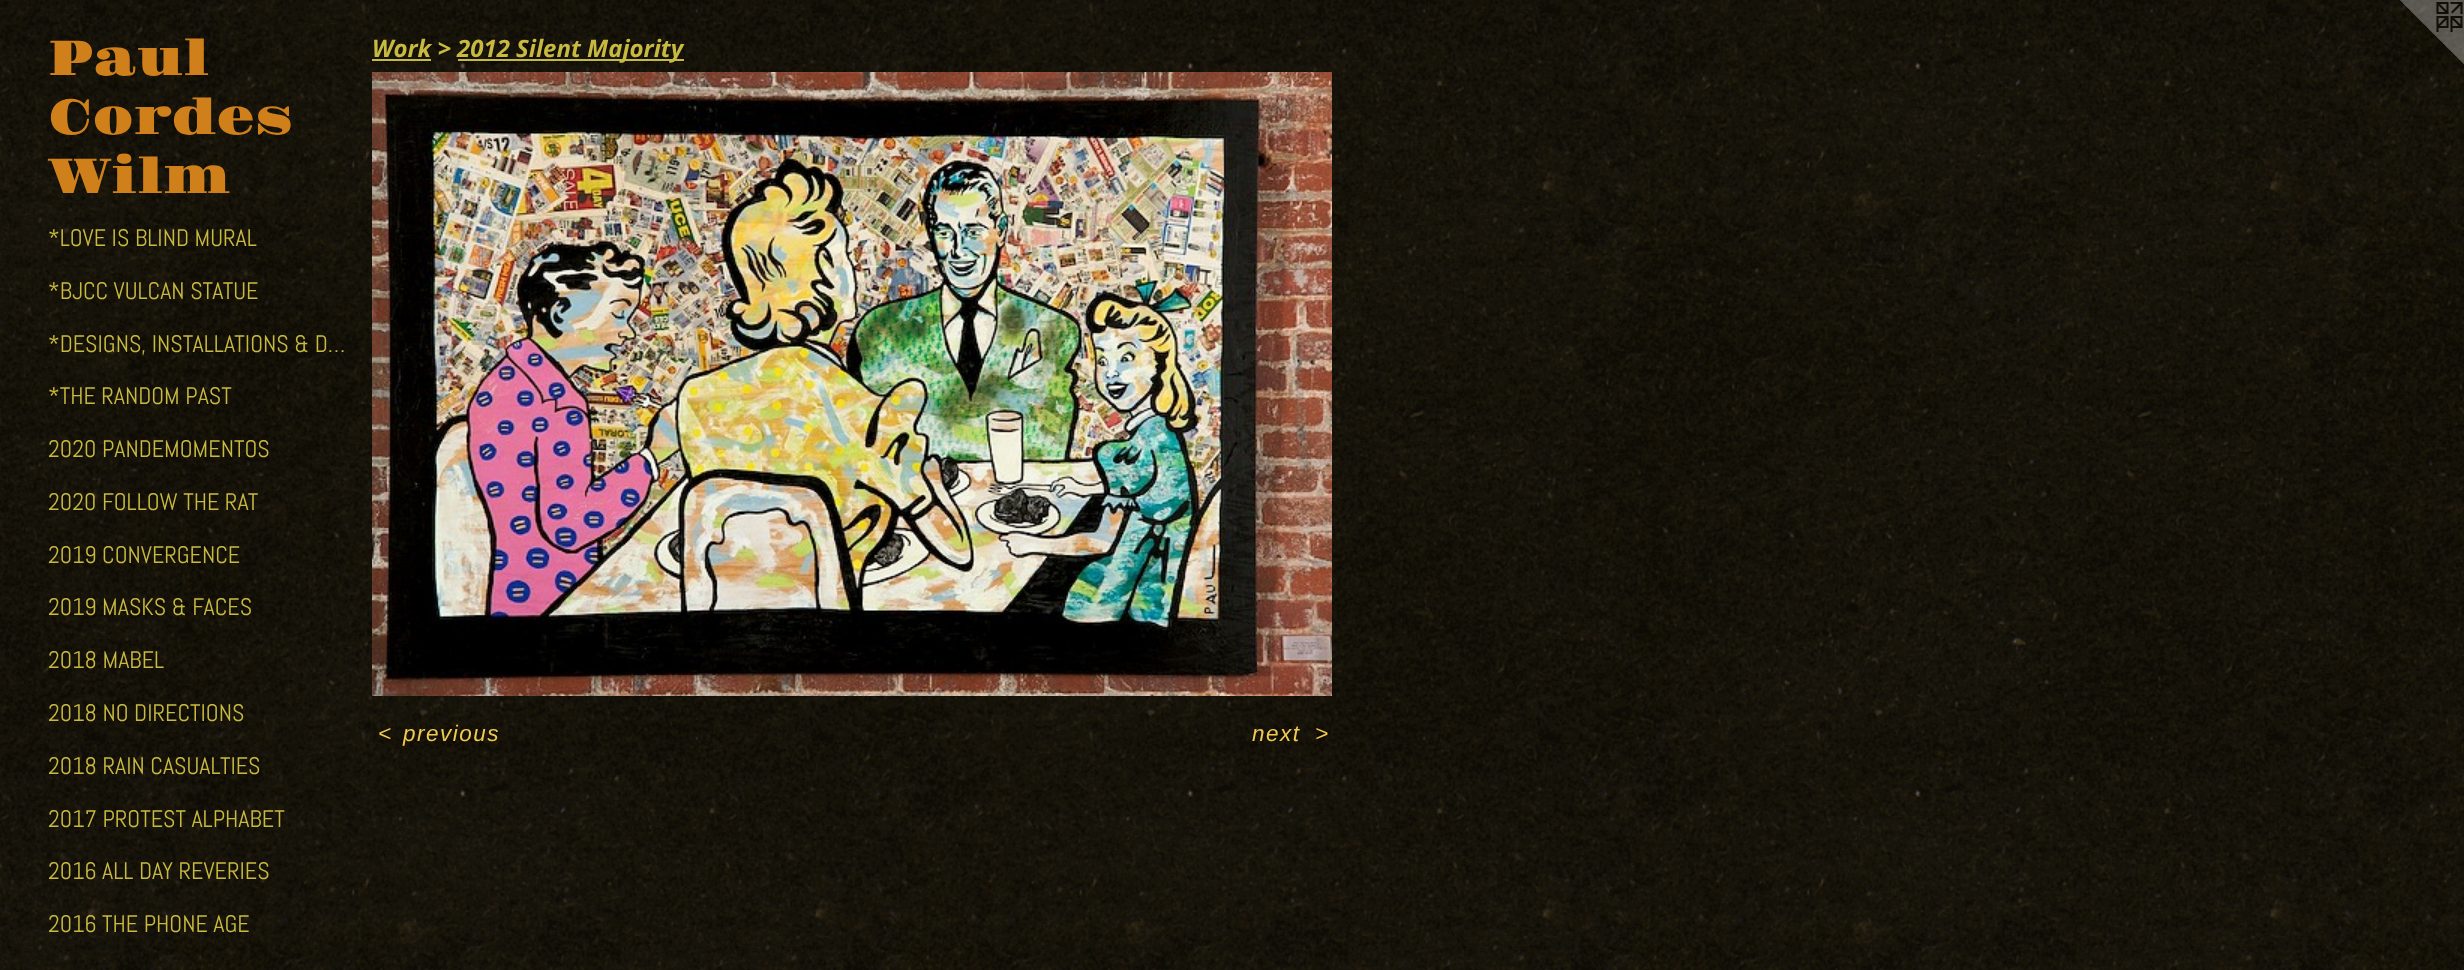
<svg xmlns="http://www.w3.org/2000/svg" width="2464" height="970">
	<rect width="100%" height="100%" fill="#FFFFFF" />
	<image x="0" y="0" width="2464" height="970" href="assets/img1.png" />
	<g font-family="Gravitas One" font-size="49.5" fill="#D0801B">
		<text x="48" y="75">Paul</text>
		<text x="48" y="134">Cordes</text>
		<text x="48" y="193">Wilm</text>
	</g>
	<g font-family="Abel" font-size="24" fill="#C8B941">
		<text x="48" y="246">*LOVE IS BLIND MURAL</text>
		<text x="48" y="299">*BJCC VULCAN STATUE</text>
		<text x="48" y="352">*DESIGNS, INSTALLATIONS &amp; D…</text>
		<text x="48" y="404">*THE RANDOM PAST</text>
		<text x="48" y="457">2020 PANDEMOMENTOS</text>
		<text x="48" y="510">2020 FOLLOW THE RAT</text>
		<text x="48" y="563">2019 CONVERGENCE</text>
		<text x="48" y="615">2019 MASKS &amp; FACES</text>
		<text x="48" y="668">2018 MABEL</text>
		<text x="48" y="721">2018 NO DIRECTIONS</text>
		<text x="48" y="774">2018 RAIN CASUALTIES</text>
		<text x="48" y="827">2017 PROTEST ALPHABET</text>
		<text x="48" y="879">2016 ALL DAY REVERIES</text>
		<text x="48" y="932">2016 THE PHONE AGE</text>
	</g>
	<text x="372" y="57" font-family="Open Sans" font-size="24" font-weight="700" font-style="italic" fill="#C8B941">Work &gt;</text>
	<rect x="372" y="59" width="59" height="2" fill="#C8B941" />
	<rect x="458" y="59" width="226" height="2" fill="#C8B941" />
	<text x="457" y="57" font-family="Open Sans" font-size="24" font-weight="700" font-style="italic" fill="#C8B941">2012 Silent Majority</text>
	<image x="372" y="72" width="960" height="624" href="assets/img2.png" />
	<g font-family="Liberation Sans" font-size="22.5" font-style="italic" letter-spacing="1.5" fill="#F2CA50">
		<text x="378" y="741">&lt;</text>
		<text x="403" y="741">previous</text>
		<text x="1252" y="741">next</text>
		<text x="1315" y="741">&gt;</text>
	</g>
	<image x="2400" y="0" width="64" height="64" href="assets/img3.png" />
</svg>
